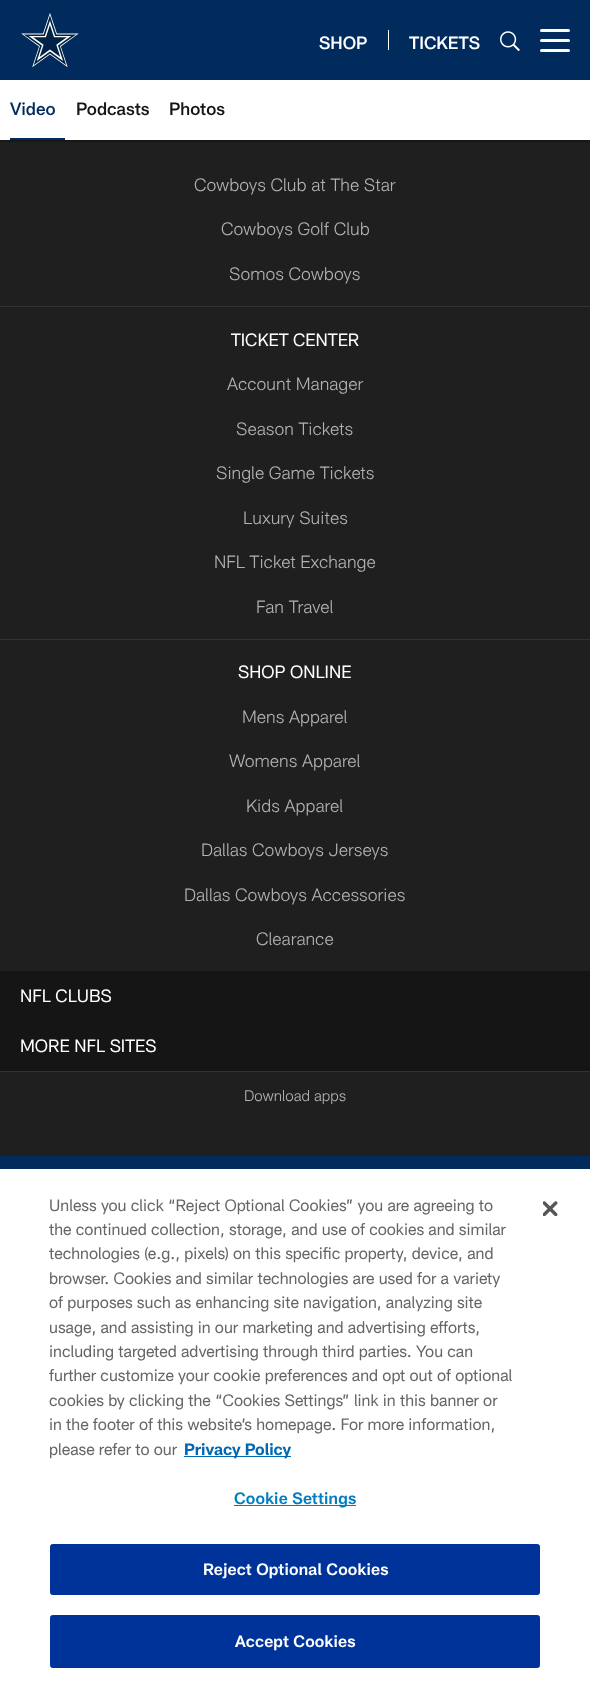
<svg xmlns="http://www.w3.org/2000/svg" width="590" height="1687">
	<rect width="100%" height="100%" fill="#1F1F1F" />
	<rect x="0" y="0" width="590" height="80" fill="#002B5C" />
	<image x="21" y="13" width="58" height="55" href="assets/img1.png" />
	<text x="319" y="49" font-family="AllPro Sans" font-size="17.5" font-weight="500" fill="#FFFFFF">SHOP</text>
	<rect x="388" y="30" width="1" height="20" fill="#FFFFFF" />
	<text x="409" y="49" font-family="AllPro Sans" font-size="17.5" font-weight="500" fill="#FFFFFF">TICKETS</text>
	<image x="500" y="31" width="20" height="20" href="assets/img2.png" />
	<rect x="540" y="39" width="30" height="3" rx="1.5" fill="#FFFFFF" />
	<rect x="540" y="29" width="30" height="3" rx="1.5" fill="#FFFFFF" />
	<rect x="540" y="49" width="30" height="3" rx="1.5" fill="#FFFFFF" />
	<rect x="0" y="81" width="590" height="60" fill="#000000" fill-opacity="0.47" filter="blur(1px)" />
	<rect x="0" y="80" width="590" height="60" fill="#FFFFFF" />
	<rect x="10" y="138" width="55" height="2" fill="#002B5C" />
	<text x="10" y="115" font-family="AllPro Sans" font-size="17.5" font-weight="500" fill="#002B5C">Video</text>
	<g font-family="AllPro Sans" font-size="17.5" font-weight="500" fill="#151515">
		<text x="76" y="115">Podcasts</text>
		<text x="169" y="115">Photos</text>
	</g>
	<g font-family="AllPro Sans" font-size="17.5" font-weight="300" fill="#B2B2B2">
		<text x="194" y="191">Cowboys Club at The Star</text>
		<text x="221" y="235">Cowboys Golf Club</text>
		<text x="229" y="280">Somos Cowboys</text>
	</g>
	<rect x="0" y="306" width="590" height="1" fill="#333333" />
	<text x="231" y="346" font-family="AllPro Sans" font-size="17.5" fill="#FFFFFF">TICKET CENTER</text>
	<g font-family="AllPro Sans" font-size="17.5" font-weight="300" fill="#B2B2B2">
		<text x="227" y="390">Account Manager</text>
		<text x="236" y="435">Season Tickets</text>
		<text x="216" y="479">Single Game Tickets</text>
		<text x="243" y="524">Luxury Suites</text>
		<text x="214" y="568">NFL Ticket Exchange</text>
		<text x="256" y="613">Fan Travel</text>
	</g>
	<rect x="0" y="639" width="590" height="1" fill="#333333" />
	<text x="238" y="678" font-family="AllPro Sans" font-size="17.5" fill="#FFFFFF">SHOP ONLINE</text>
	<g font-family="AllPro Sans" font-size="17.5" font-weight="300" fill="#B2B2B2">
		<text x="242" y="723">Mens Apparel</text>
		<text x="229" y="767">Womens Apparel</text>
		<text x="246" y="812">Kids Apparel</text>
		<text x="201" y="856">Dallas Cowboys Jerseys</text>
		<text x="184" y="901">Dallas Cowboys Accessories</text>
		<text x="256" y="945">Clearance</text>
	</g>
	<rect x="0" y="971" width="590" height="100" fill="#151515" />
	<g font-family="AllPro Sans" font-size="17.5" fill="#FFFFFF">
		<text x="20" y="1002">NFL CLUBS</text>
		<text x="20" y="1052">MORE NFL SITES</text>
	</g>
	<rect x="0" y="1071" width="590" height="1" fill="#333333" />
	<text x="244" y="1101" font-family="AllPro Sans" font-size="15" font-weight="300" fill="#B2B2B2">Download apps</text>
	<rect x="0" y="1156" width="590" height="13" fill="#002B5C" />
	<rect x="0" y="1169" width="590" height="518" fill="#FFFFFF" />
	<g font-family="AllPro Sans" font-size="16.25" fill="#666666">
		<text x="49" y="1211">Unless you click “Reject Optional Cookies” you are agreeing to</text>
		<text x="49" y="1235">the continued collection, storage, and use of cookies and similar</text>
		<text x="49" y="1259">technologies (e.g., pixels) on this specific property, device, and</text>
		<text x="49" y="1284">browser. Cookies and similar technologies are used for a variety</text>
		<text x="49" y="1308">of purposes such as enhancing site navigation, analyzing site</text>
		<text x="49" y="1333">usage, and assisting in our marketing and advertising efforts,</text>
		<text x="49" y="1357">including targeted advertising through third parties. You can</text>
		<text x="49" y="1381">further customize your cookie preferences and opt out of optional</text>
		<text x="49" y="1406">cookies by clicking the “Cookies Settings” link in this banner or</text>
		<text x="49" y="1430">in the footer of this website’s homepage. For more information,</text>
		<text x="49" y="1455">please refer to our</text>
	</g>
	<rect x="184" y="1456" width="107" height="1" fill="#0067B1" />
	<text x="184" y="1455" font-family="AllPro Sans" font-size="16.25" font-weight="700" fill="#0067B1">Privacy Policy</text>
	<rect x="234" y="1505" width="122" height="1" fill="#007DC3" />
	<text x="234" y="1504" font-family="AllPro Sans" font-size="16.25" font-weight="600" letter-spacing="0.2" fill="#007DC3">Cookie Settings</text>
	<rect x="50.5" y="1544.5" width="489" height="50" rx="2" fill="#003399" stroke="#003399" />
	<text x="203" y="1575" font-family="AllPro Sans" font-size="16.25" font-weight="600" letter-spacing="0.2" fill="#FFFFFF">Reject Optional Cookies</text>
	<rect x="50.5" y="1615.5" width="489" height="52" rx="2" fill="#003399" stroke="#003399" />
	<text x="235" y="1647" font-family="AllPro Sans" font-size="16.25" font-weight="600" letter-spacing="0.2" fill="#FFFFFF">Accept Cookies</text>
	<image x="543" y="1201" width="15" height="15" href="assets/img3.png" />
</svg>
